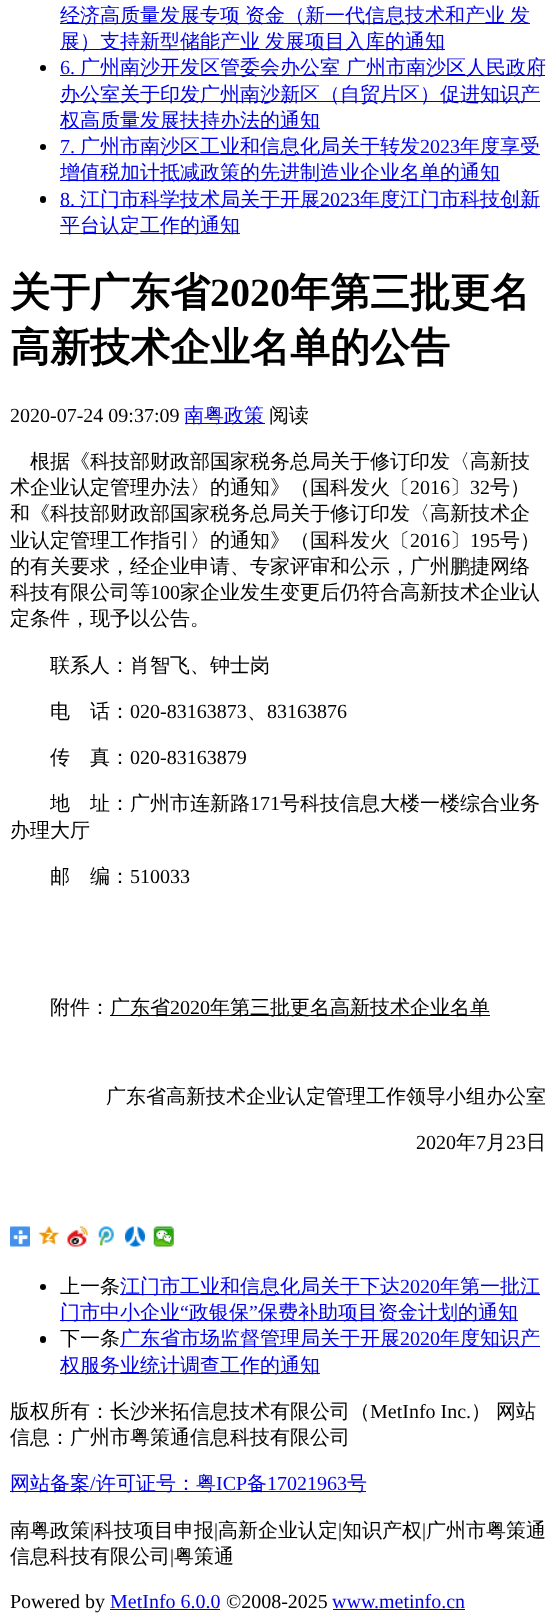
<svg xmlns="http://www.w3.org/2000/svg" width="556" height="1622">
	<rect width="100%" height="100%" fill="#FFFFFF" />
	<rect x="60" y="23" width="470" height="1" fill="#0000EE" />
	<text x="60" y="22" word-spacing="-1" font-family="WenQuanYi Zen Hei" font-size="20" font-weight="500" fill="#0000EE">经济高质量发展专项 资金（新一代信息技术和产业 发</text>
	<rect x="60" y="49" width="385" height="1" fill="#0000EE" />
	<text x="60" y="48" word-spacing="-1" font-family="WenQuanYi Zen Hei" font-size="20" font-weight="500" fill="#0000EE">展）支持新型储能产业 发展项目入库的通知</text>
	<circle cx="43" cy="68" r="3" fill="#000000" />
	<text x="60" y="74" font-family="Liberation Serif" font-size="20" fill="#0000EE">6.</text>
	<rect x="60" y="75" width="485" height="1" fill="#0000EE" />
	<text x="80" y="74" font-family="WenQuanYi Zen Hei" font-size="20" font-weight="500" fill="#0000EE">广州南沙开发区管委会办公室 广州市南沙区人民政府</text>
	<rect x="60" y="101" width="480" height="1" fill="#0000EE" />
	<text x="60" y="101" font-family="WenQuanYi Zen Hei" font-size="20" font-weight="500" fill="#0000EE">办公室关于印发广州南沙新区（自贸片区）促进知识产</text>
	<rect x="60" y="128" width="260" height="1" fill="#0000EE" />
	<text x="60" y="127" font-family="WenQuanYi Zen Hei" font-size="20" font-weight="500" fill="#0000EE">权高质量发展扶持办法的通知</text>
	<circle cx="43" cy="147" r="3" fill="#000000" />
	<text x="60" y="153" font-family="Liberation Serif" font-size="20" fill="#0000EE">7.</text>
	<rect x="60" y="154" width="480" height="1" fill="#0000EE" />
	<text x="80" y="153" font-family="WenQuanYi Zen Hei" font-size="20" font-weight="500" fill="#0000EE">广州市南沙区工业和信息化局关于转发</text>
	<text x="420" y="153" font-family="Liberation Serif" font-size="20" fill="#0000EE">2023</text>
	<text x="460" y="153" font-family="WenQuanYi Zen Hei" font-size="20" font-weight="500" fill="#0000EE">年度享受</text>
	<rect x="60" y="180" width="440" height="1" fill="#0000EE" />
	<text x="60" y="179" font-family="WenQuanYi Zen Hei" font-size="20" font-weight="500" fill="#0000EE">增值税加计抵减政策的先进制造业企业名单的通知</text>
	<rect x="40" y="196" width="6" height="7" rx="3" fill="#000000" />
	<rect x="60" y="206" width="480" height="1" fill="#0000EE" />
	<text x="60" y="206" font-family="Liberation Serif" font-size="20" fill="#0000EE">8.</text>
	<text x="80" y="206" font-family="WenQuanYi Zen Hei" font-size="20" font-weight="500" fill="#0000EE">江门市科学技术局关于开展</text>
	<text x="320" y="206" font-family="Liberation Serif" font-size="20" fill="#0000EE">2023</text>
	<text x="360" y="206" font-family="WenQuanYi Zen Hei" font-size="20" font-weight="500" fill="#0000EE">年度江门市科技创新</text>
	<rect x="60" y="233" width="180" height="1" fill="#0000EE" />
	<text x="60" y="232" font-family="WenQuanYi Zen Hei" font-size="20" font-weight="500" fill="#0000EE">平台认定工作的通知</text>
	<text x="10" y="306" font-family="WenQuanYi Zen Hei" font-size="40" font-weight="700" fill="#000000">关于广东省</text>
	<text x="210" y="306" font-family="Liberation Serif" font-size="40" font-weight="700" fill="#000000">2020</text>
	<g font-family="WenQuanYi Zen Hei" font-size="40" font-weight="700" fill="#000000">
		<text x="290" y="306">年第三批更名</text>
		<text x="10" y="361">高新技术企业名单的公告</text>
	</g>
	<text x="10" y="422" font-family="Liberation Serif" font-size="20" fill="#000000">2020-07-24 09:37:09</text>
	<rect x="185" y="423" width="80" height="1" fill="#0000EE" />
	<text x="184" y="422" font-family="WenQuanYi Zen Hei" font-size="20" font-weight="500" fill="#0000EE">南粤政策</text>
	<g font-family="WenQuanYi Zen Hei" font-size="20" font-weight="500" fill="#000000">
		<text x="269" y="422">阅读</text>
		<text x="30" y="468">根据《科技部财政部国家税务总局关于修订印发〈高新技</text>
		<text x="10" y="494">术企业认定管理办法〉的通知》（国科发火〔</text>
	</g>
	<text x="410" y="494" font-family="Liberation Serif" font-size="20" fill="#000000">2016</text>
	<text x="450" y="494" font-family="WenQuanYi Zen Hei" font-size="20" font-weight="500" fill="#000000">〕</text>
	<text x="470" y="494" font-family="Liberation Serif" font-size="20" fill="#000000">32</text>
	<g font-family="WenQuanYi Zen Hei" font-size="20" font-weight="500" fill="#000000">
		<text x="490" y="494">号）</text>
		<text x="10" y="520">和《科技部财政部国家税务总局关于修订印发〈高新技术企</text>
		<text x="10" y="547">业认定管理工作指引〉的通知》（国科发火〔</text>
	</g>
	<text x="410" y="547" font-family="Liberation Serif" font-size="20" fill="#000000">2016</text>
	<text x="450" y="547" font-family="WenQuanYi Zen Hei" font-size="20" font-weight="500" fill="#000000">〕</text>
	<text x="470" y="547" font-family="Liberation Serif" font-size="20" fill="#000000">195</text>
	<g font-family="WenQuanYi Zen Hei" font-size="20" font-weight="500" fill="#000000">
		<text x="500" y="547">号）</text>
		<text x="10" y="573">的有关要求，经企业申请、专家评审和公示，广州鹏捷网络</text>
		<text x="10" y="599">科技有限公司等</text>
	</g>
	<text x="150" y="599" font-family="Liberation Serif" font-size="20" fill="#000000">100</text>
	<g font-family="WenQuanYi Zen Hei" font-size="20" font-weight="500" fill="#000000">
		<text x="180" y="599">家企业发生变更后仍符合高新技术企业认</text>
		<text x="10" y="625">定条件，现予以公告。</text>
		<text x="50" y="672">联系人：肖智飞、钟士岗</text>
		<text x="50" y="718">电　话：</text>
	</g>
	<text x="130" y="718" font-family="Liberation Serif" font-size="20" fill="#000000">020-83163873</text>
	<text x="247" y="718" font-family="WenQuanYi Zen Hei" font-size="20" font-weight="500" fill="#000000">、</text>
	<text x="267" y="718" font-family="Liberation Serif" font-size="20" fill="#000000">83163876</text>
	<text x="50" y="764" font-family="WenQuanYi Zen Hei" font-size="20" font-weight="500" fill="#000000">传　真：</text>
	<text x="130" y="764" font-family="Liberation Serif" font-size="20" fill="#000000">020-83163879</text>
	<text x="50" y="810" font-family="WenQuanYi Zen Hei" font-size="20" font-weight="500" fill="#000000">地　址：广州市连新路</text>
	<text x="250" y="810" font-family="Liberation Serif" font-size="20" fill="#000000">171</text>
	<g font-family="WenQuanYi Zen Hei" font-size="20" font-weight="500" fill="#000000">
		<text x="280" y="810">号科技信息大楼一楼综合业务</text>
		<text x="10" y="837">办理大厅</text>
		<text x="50" y="883">邮　编：</text>
	</g>
	<text x="130" y="883" font-family="Liberation Serif" font-size="20" fill="#000000">510033</text>
	<text x="50" y="1014" font-family="WenQuanYi Zen Hei" font-size="20" font-weight="500" fill="#000000">附件：</text>
	<rect x="110" y="1015" width="380" height="1" fill="#000000" />
	<text x="110" y="1014" font-family="WenQuanYi Zen Hei" font-size="20" font-weight="500" fill="#000000">广东省</text>
	<text x="170" y="1014" font-family="Liberation Serif" font-size="20" fill="#000000">2020</text>
	<g font-family="WenQuanYi Zen Hei" font-size="20" font-weight="500" fill="#000000">
		<text x="210" y="1014">年第三批更名高新技术企业名单</text>
		<text x="106" y="1103">广东省高新技术企业认定管理工作领导小组办公室</text>
	</g>
	<text x="416" y="1149" font-family="Liberation Serif" font-size="20" fill="#000000">2020</text>
	<text x="456" y="1149" font-family="WenQuanYi Zen Hei" font-size="20" font-weight="500" fill="#000000">年</text>
	<text x="476" y="1149" font-family="Liberation Serif" font-size="20" fill="#000000">7</text>
	<text x="486" y="1149" font-family="WenQuanYi Zen Hei" font-size="20" font-weight="500" fill="#000000">月</text>
	<text x="506" y="1149" font-family="Liberation Serif" font-size="20" fill="#000000">23</text>
	<text x="526" y="1149" font-family="WenQuanYi Zen Hei" font-size="20" font-weight="500" fill="#000000">日</text>
	<image x="10" y="1226" width="20" height="21" href="assets/img1.png" />
	<image x="38" y="1226" width="21" height="19" href="assets/img2.png" />
	<image x="67" y="1226" width="21" height="21" href="assets/img3.png" />
	<image x="98" y="1226" width="16" height="20" href="assets/img4.png" />
	<image x="125" y="1226" width="20" height="21" href="assets/img5.png" />
	<image x="153" y="1226" width="21" height="21" href="assets/img6.png" />
	<circle cx="43" cy="1287" r="3" fill="#000000" />
	<text x="60" y="1293" font-family="WenQuanYi Zen Hei" font-size="20" font-weight="500" fill="#000000">上一条</text>
	<rect x="120" y="1294" width="420" height="1" fill="#0000EE" />
	<text x="120" y="1293" font-family="WenQuanYi Zen Hei" font-size="20" font-weight="500" fill="#0000EE">江门市工业和信息化局关于下达</text>
	<text x="400" y="1293" font-family="Liberation Serif" font-size="20" fill="#0000EE">2020</text>
	<text x="440" y="1293" font-family="WenQuanYi Zen Hei" font-size="20" font-weight="500" fill="#0000EE">年第一批江</text>
	<rect x="60" y="1320" width="458" height="1" fill="#0000EE" />
	<text x="60" y="1319" font-family="WenQuanYi Zen Hei" font-size="20" font-weight="500" fill="#0000EE">门市中小企业</text>
	<text x="180" y="1319" font-family="Liberation Serif" font-size="20" fill="#0000EE">“</text>
	<text x="189" y="1319" font-family="WenQuanYi Zen Hei" font-size="20" font-weight="500" fill="#0000EE">政银保</text>
	<text x="249" y="1319" font-family="Liberation Serif" font-size="20" fill="#0000EE">”</text>
	<text x="258" y="1319" font-family="WenQuanYi Zen Hei" font-size="20" font-weight="500" fill="#0000EE">保费补助项目资金计划的通知</text>
	<rect x="40" y="1336" width="6" height="7" rx="3" fill="#000000" />
	<text x="60" y="1345" font-family="WenQuanYi Zen Hei" font-size="20" font-weight="500" fill="#000000">下一条</text>
	<rect x="120" y="1346" width="420" height="1" fill="#0000EE" />
	<text x="120" y="1345" font-family="WenQuanYi Zen Hei" font-size="20" font-weight="500" fill="#0000EE">广东省市场监督管理局关于开展</text>
	<text x="400" y="1345" font-family="Liberation Serif" font-size="20" fill="#0000EE">2020</text>
	<text x="440" y="1345" font-family="WenQuanYi Zen Hei" font-size="20" font-weight="500" fill="#0000EE">年度知识产</text>
	<rect x="60" y="1373" width="260" height="1" fill="#0000EE" />
	<text x="60" y="1372" font-family="WenQuanYi Zen Hei" font-size="20" font-weight="500" fill="#0000EE">权服务业统计调查工作的通知</text>
	<text x="10" y="1418" font-family="WenQuanYi Zen Hei" font-size="20" font-weight="500" fill="#000000">版权所有：长沙米拓信息技术有限公司（</text>
	<text x="370" y="1418" font-family="Liberation Serif" font-size="20" fill="#000000">MetInfo Inc.</text>
	<g font-family="WenQuanYi Zen Hei" font-size="20" font-weight="500" fill="#000000">
		<text x="471" y="1418">）</text>
		<text x="496" y="1418">网站</text>
		<text x="10" y="1444">信息：广州市粤策通信息科技有限公司</text>
	</g>
	<rect x="10" y="1491" width="356" height="1" fill="#0000EE" />
	<text x="10" y="1490" font-family="WenQuanYi Zen Hei" font-size="20" font-weight="500" fill="#0000EE">网站备案</text>
	<text x="90" y="1490" font-family="Liberation Serif" font-size="20" fill="#0000EE">/</text>
	<text x="96" y="1490" font-family="WenQuanYi Zen Hei" font-size="20" font-weight="500" fill="#0000EE">许可证号：粤</text>
	<text x="216" y="1490" font-family="Liberation Serif" font-size="20" fill="#0000EE">ICP</text>
	<text x="247" y="1490" font-family="WenQuanYi Zen Hei" font-size="20" font-weight="500" fill="#0000EE">备</text>
	<text x="267" y="1490" font-family="Liberation Serif" font-size="20" fill="#0000EE">17021963</text>
	<text x="347" y="1490" font-family="WenQuanYi Zen Hei" font-size="20" font-weight="500" fill="#0000EE">号</text>
	<text x="10" y="1537" font-family="WenQuanYi Zen Hei" font-size="20" font-weight="500" fill="#000000">南粤政策</text>
	<text x="90" y="1537" font-family="Liberation Serif" font-size="20" fill="#000000">|</text>
	<text x="94" y="1537" font-family="WenQuanYi Zen Hei" font-size="20" font-weight="500" fill="#000000">科技项目申报</text>
	<text x="214" y="1537" font-family="Liberation Serif" font-size="20" fill="#000000">|</text>
	<text x="218" y="1537" font-family="WenQuanYi Zen Hei" font-size="20" font-weight="500" fill="#000000">高新企业认定</text>
	<text x="338" y="1537" font-family="Liberation Serif" font-size="20" fill="#000000">|</text>
	<text x="342" y="1537" font-family="WenQuanYi Zen Hei" font-size="20" font-weight="500" fill="#000000">知识产权</text>
	<text x="422" y="1537" font-family="Liberation Serif" font-size="20" fill="#000000">|</text>
	<g font-family="WenQuanYi Zen Hei" font-size="20" font-weight="500" fill="#000000">
		<text x="426" y="1537">广州市粤策通</text>
		<text x="10" y="1563">信息科技有限公司</text>
	</g>
	<text x="170" y="1563" font-family="Liberation Serif" font-size="20" fill="#000000">|</text>
	<text x="174" y="1563" font-family="WenQuanYi Zen Hei" font-size="20" font-weight="500" fill="#000000">粤策通</text>
	<text x="10" y="1608" font-family="Liberation Serif" font-size="20" fill="#000000">Powered by</text>
	<text x="110" y="1608" font-family="Liberation Serif" font-size="20" fill="#0000EE">MetInfo 6.0.0</text>
	<rect x="110" y="1609" width="110" height="1" fill="#0000EE" />
	<text x="226" y="1608" font-family="Liberation Serif" font-size="20" fill="#000000">©2008-2025</text>
	<text x="332" y="1608" font-family="Liberation Serif" font-size="20" fill="#0000EE">www.metinfo.cn</text>
	<rect x="333" y="1609" width="132" height="1" fill="#0000EE" />
</svg>
